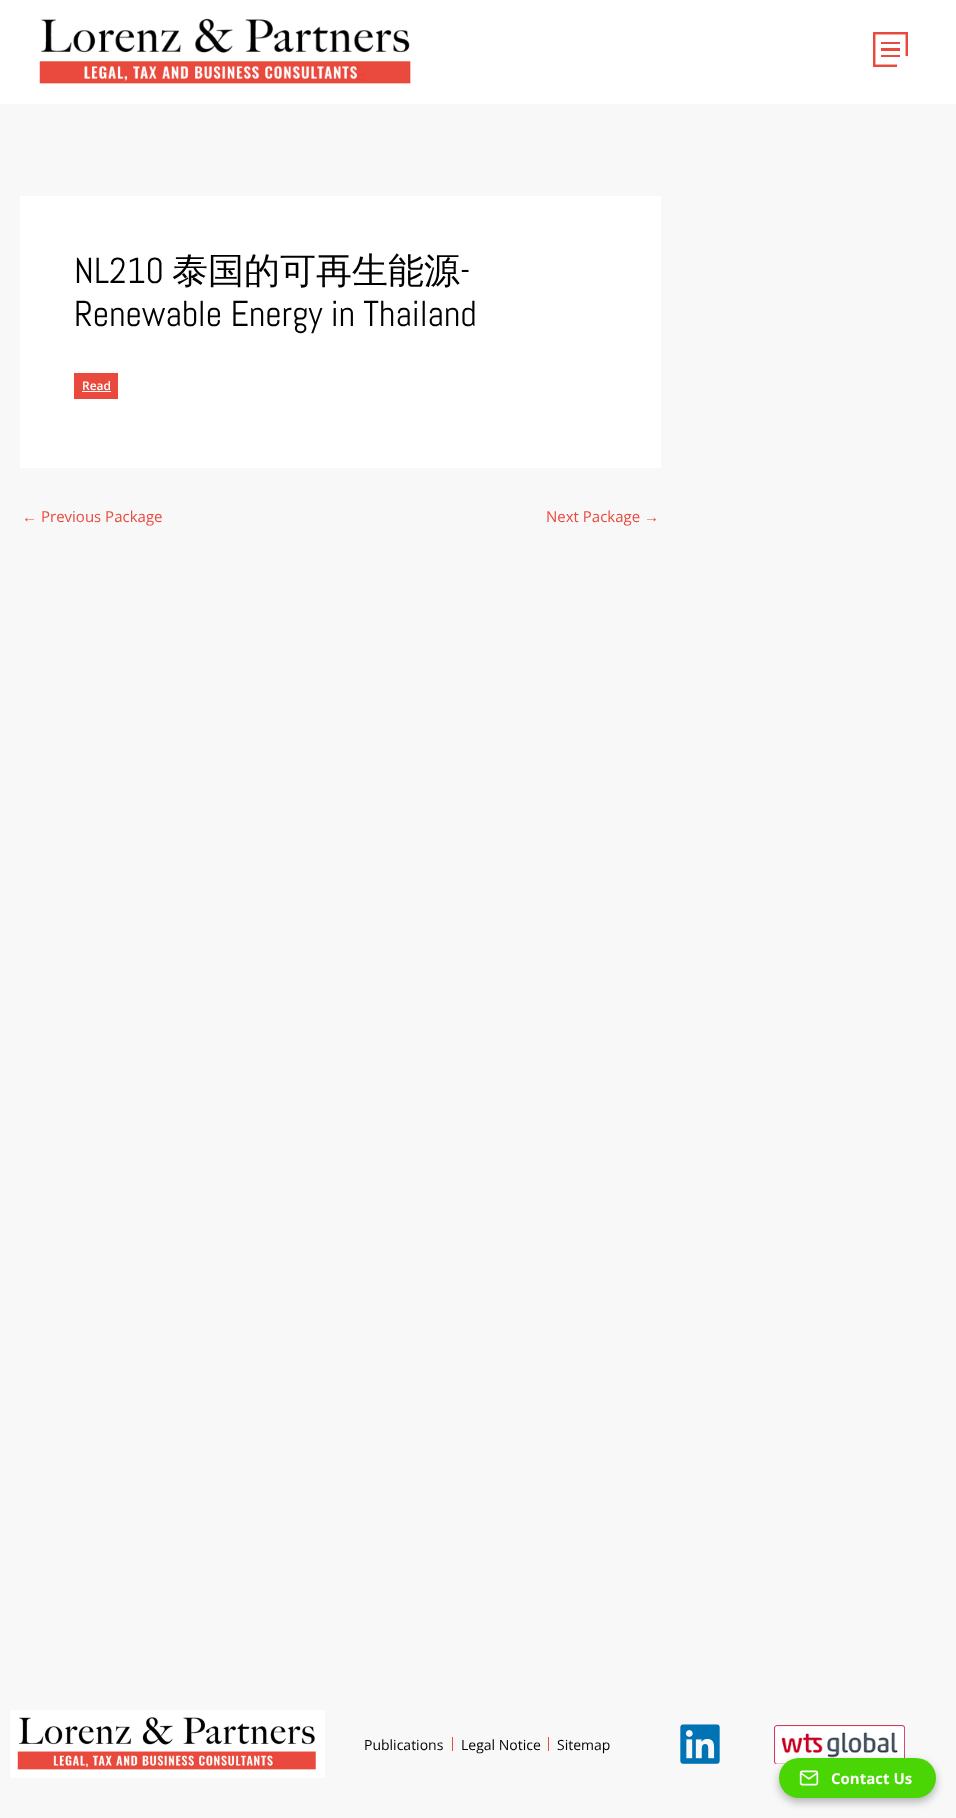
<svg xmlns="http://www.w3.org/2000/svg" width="956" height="1818">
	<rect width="100%" height="100%" fill="#F8F8F8" />
	<rect x="0" y="0" width="956" height="104" fill="#FFFFFF" />
	<image x="39" y="18" width="372" height="66" href="assets/img1.png" />
	<image x="873" y="32" width="35" height="35" href="assets/img2.png" />
	<rect x="20" y="196" width="641" height="272" fill="#FFFFFF" />
	<text x="74" y="283" font-family="Abel" font-size="36" fill="#000000">NL210</text>
	<text x="172" y="283" font-family="WenQuanYi Zen Hei" font-size="36" font-weight="500" fill="#000000">泰国的可再生能源</text>
	<g font-family="Abel" font-size="36" fill="#000000">
		<text x="460" y="283">-</text>
		<text x="74" y="326">Renewable Energy in Thailand</text>
	</g>
	<rect x="74" y="373" width="44" height="26" fill="#E94A3D" />
	<text x="82" y="390" font-family="Open Sans" font-size="12" font-weight="600" fill="#FFFFFF">Read</text>
	<rect x="82" y="391" width="29" height="1" fill="#FFFFFF" />
	<text x="22" y="522" font-family="Liberation Sans" font-size="15" fill="#E94A3D">←</text>
	<g font-family="Open Sans" font-size="15" fill="#E94A3D">
		<text x="41" y="522">Previous Package</text>
		<text x="546" y="522">Next Package</text>
	</g>
	<text x="644" y="522" font-family="Liberation Sans" font-size="15" fill="#E94A3D">→</text>
	<image x="10" y="1710" width="315" height="68" href="assets/img3.png" />
	<text x="364" y="1750" font-family="Open Sans" font-size="14" fill="#000000">Publications</text>
	<rect x="452" y="1737" width="1" height="14" fill="#E94A3D" />
	<text x="461" y="1750" font-family="Open Sans" font-size="14" fill="#000000">Legal Notice</text>
	<rect x="548" y="1737" width="1" height="14" fill="#E94A3D" />
	<text x="557" y="1750" font-family="Open Sans" font-size="14" fill="#000000">Sitemap</text>
	<image x="680" y="1724" width="40" height="40" href="assets/img4.png" />
	<image x="774" y="1725" width="131" height="39" href="assets/img5.png" />
	<rect x="779" y="1762" width="157" height="40" rx="20" fill="#000000" fill-opacity="0.28" filter="blur(4px)" />
	<rect x="779" y="1758" width="157" height="40" rx="20" fill="#4AD504" />
	<image x="799" y="1770" width="20" height="16" href="assets/img6.png" />
	<text x="831" y="1784" font-family="Open Sans" font-size="15" font-weight="700" fill="#FFFFFF">Contact Us</text>
</svg>
